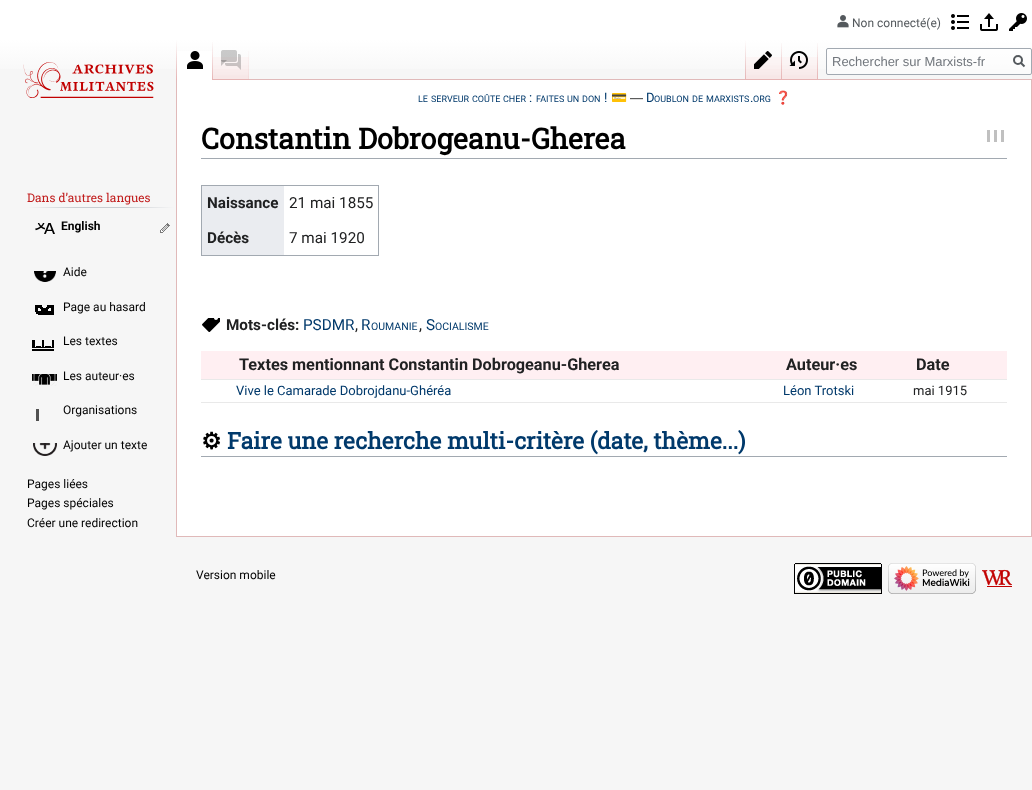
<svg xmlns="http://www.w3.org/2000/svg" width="1032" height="790">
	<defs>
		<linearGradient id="g1" gradientUnits="userSpaceOnUse" x1="516" y1="0" x2="516" y2="80"><stop offset="0.5" stop-color="#FFFFFF" /><stop offset="1" stop-color="#F6F6F6" /></linearGradient>
		<linearGradient id="g2" gradientUnits="userSpaceOnUse" x1="177" y1="40" x2="177" y2="80"><stop offset="0" stop-color="#E6B4B4" stop-opacity="0" /><stop offset="1" stop-color="#E6B4B4" /></linearGradient>
		<linearGradient id="g3" gradientUnits="userSpaceOnUse" x1="746" y1="40" x2="746" y2="80"><stop offset="0" stop-color="#E6B4B4" stop-opacity="0" /><stop offset="1" stop-color="#E6B4B4" /></linearGradient>
		<linearGradient id="g4" gradientUnits="userSpaceOnUse" x1="27" y1="208" x2="174" y2="208"><stop offset="0" stop-color="#F6F6F6" /><stop offset="0.33" stop-color="#C8CCD1" /><stop offset="0.66" stop-color="#C8CCD1" /><stop offset="1" stop-color="#F6F6F6" /></linearGradient>
	</defs>
	<rect width="100%" height="100%" fill="#F6F6F6" />
	<rect x="0" y="0" width="1032" height="69" fill="url(#g1)" />
	<image x="837" y="15" width="12" height="13" href="assets/img1.png" />
	<text x="852" y="27" font-family="Roboto" font-size="12" fill="#54595D">Non connecté(e)</text>
	<image x="951" y="14" width="18" height="16" href="assets/img2.png" />
	<image x="980" y="13" width="18" height="18" href="assets/img3.png" />
	<image x="1009" y="13" width="18" height="18" href="assets/img4.png" />
	<rect x="176.5" y="79.5" width="855" height="457" fill="#FFFFFF" stroke="#E0B9B9" />
	<rect x="176" y="40" width="1" height="40" fill="url(#g2)" />
	<rect x="177" y="51" width="36" height="29" fill="#FFFFFF" />
	<image x="187" y="51" width="16" height="18" href="assets/img5.png" />
	<image x="212" y="42" width="1" height="38" href="assets/img6.png" />
	<image x="213" y="57" width="36" height="23" href="assets/img7.png" />
	<image x="221" y="50" width="20" height="20" href="assets/img8.png" />
	<image x="248" y="51" width="1" height="28" href="assets/img9.png" />
	<rect x="745" y="40" width="1" height="40" fill="url(#g3)" />
	<image x="746" y="57" width="36" height="23" href="assets/img7.png" />
	<image x="754" y="51" width="18" height="18" href="assets/img10.png" />
	<image x="781" y="43" width="1" height="36" href="assets/img11.png" />
	<image x="782" y="57" width="36" height="23" href="assets/img7.png" />
	<image x="789" y="51" width="19" height="18" href="assets/img12.png" />
	<image x="817" y="43" width="1" height="36" href="assets/img11.png" />
	<rect x="826.5" y="48.5" width="205" height="26" rx="1.5" fill="#FFFFFF" fill-opacity="0.5" stroke="#A2A9B1" />
	<text x="832" y="66" font-family="Liberation Sans" font-size="13" fill="#72777D">Rechercher sur Marxists-fr</text>
	<path d="M1024.5 66.5L1020.5 62.5" fill="none" stroke="#54595D" stroke-width="2" />
	<circle cx="1018" cy="60" r="4" fill="none" stroke="#54595D" stroke-width="2" />
	<image x="23" y="62" width="131" height="36" href="assets/img13.png" />
	<rect x="27" y="207" width="147" height="1" fill="url(#g4)" />
	<text x="27" y="202" font-family="Roboto Slab" font-size="12" fill="#C11C1C">Dans d’autres langues</text>
	<image x="35" y="223" width="20" height="11" href="assets/img14.png" />
	<text x="61" y="230" font-family="Roboto" font-size="12" font-weight="700" fill="#000000">English</text>
	<image x="160" y="223" width="10" height="10" href="assets/img15.png" />
	<image x="34" y="271" width="22" height="11" href="assets/img16.png" />
	<text x="63" y="276" font-family="Roboto" font-size="12" fill="#000000">Aide</text>
	<image x="35" y="305" width="19" height="10" href="assets/img17.png" />
	<text x="63" y="311" font-family="Roboto" font-size="12" fill="#000000">Page au hasard</text>
	<image x="32" y="340" width="22" height="11" href="assets/img18.png" />
	<text x="63" y="345" font-family="Roboto" font-size="12" fill="#000000">Les textes</text>
	<image x="32" y="374" width="25" height="12" href="assets/img19.png" />
	<text x="63" y="380" font-family="Roboto" font-size="12" fill="#000000">Les auteur·es</text>
	<rect x="36" y="409" width="3" height="12" fill="#515151" />
	<text x="63" y="414" font-family="Roboto" font-size="12" fill="#000000">Organisations</text>
	<image x="33" y="443" width="24" height="13" href="assets/img20.png" />
	<g font-family="Roboto" font-size="12" fill="#000000">
		<text x="63" y="449">Ajouter un texte</text>
		<text x="27" y="488">Pages liées</text>
		<text x="27" y="507">Pages spéciales</text>
		<text x="27" y="527">Créer une redirection</text>
	</g>
	<g font-family="Roboto" font-size="9" fill="#00396B">
		<text x="418" y="102">LE</text>
		<text x="431" y="102">SERVEUR</text>
		<text x="472" y="102">COÛTE</text>
		<text x="503" y="102">CHER</text>
	</g>
	<text x="529" y="102" font-family="Roboto" font-size="13" fill="#00396B">:</text>
	<g font-family="Roboto" font-size="9" fill="#00396B">
		<text x="536" y="102">FAITES</text>
		<text x="567" y="102">UN</text>
		<text x="582" y="102">DON</text>
	</g>
	<text x="604" y="102" font-family="Roboto" font-size="13" fill="#00396B">!</text>
	<text x="611" y="102" font-family="Noto Color Emoji" font-size="13" fill="#202122">💳</text>
	<text x="630" y="102" font-family="Liberation Sans" font-size="13" fill="#202122">―</text>
	<text x="646" y="102" font-family="Roboto" font-size="13" fill="#00396B">D</text>
	<g font-family="Roboto" font-size="9" fill="#00396B">
		<text x="654" y="102">OUBLON</text>
		<text x="692" y="102">DE</text>
		<text x="706" y="102">MARXISTS</text>
		<text x="753" y="102">ORG</text>
	</g>
	<text x="775" y="102" font-family="Noto Color Emoji" font-size="13" fill="#202122">❓</text>
	<text x="750" y="102" font-family="Roboto" font-size="13" fill="#00396B">.</text>
	<rect x="201" y="158" width="806" height="1" fill="#A2A9B1" />
	<text x="201" y="149" font-family="Roboto Slab" font-size="28.75" font-weight="700" fill="#000000">Constantin Dobrogeanu-Gherea</text>
	<rect x="994" y="130" width="3" height="12" fill="#C0C0C0" />
	<rect x="987" y="130" width="3" height="12" fill="#C0C0C0" />
	<rect x="1001" y="130" width="3" height="12" fill="#C0C0C0" />
	<rect x="201" y="185" width="178" height="1" fill="#A2A9B1" />
	<rect x="378" y="185" width="1" height="71" fill="#A2A9B1" />
	<rect x="201" y="255" width="178" height="1" fill="#A2A9B1" />
	<rect x="201" y="185" width="1" height="71" fill="#A2A9B1" />
	<rect x="202" y="186" width="82" height="69" fill="#EAECF0" />
	<text x="207" y="208" font-family="Roboto" font-size="15.25" font-weight="700" fill="#202122">Naissance</text>
	<text x="289" y="208" font-family="Roboto" font-size="15.25" fill="#202122">21 mai 1855</text>
	<text x="207" y="243" font-family="Roboto" font-size="15.25" font-weight="700" fill="#202122">Décès</text>
	<text x="289" y="243" font-family="Roboto" font-size="15.25" fill="#202122">7 mai 1920</text>
	<image x="202" y="318" width="18" height="14" href="assets/img21.png" />
	<text x="226" y="330" font-family="Roboto" font-size="15.25" font-weight="700" fill="#202122">Mots-clés:</text>
	<text x="303" y="330" font-family="Roboto" font-size="15.25" fill="#00396B">PSDMR</text>
	<text x="355" y="330" font-family="Roboto" font-size="15.25" fill="#202122">,</text>
	<text x="361" y="330" font-family="Roboto" font-size="15.25" fill="#00396B">R</text>
	<text x="371" y="330" font-family="Roboto" font-size="10.5" fill="#00396B">OUMANIE</text>
	<text x="419" y="330" font-family="Roboto" font-size="15.25" fill="#202122">,</text>
	<text x="426" y="330" font-family="Roboto" font-size="15.25" fill="#00396B">S</text>
	<text x="435" y="330" font-family="Roboto" font-size="10.5" fill="#00396B">OCIALISME</text>
	<rect x="201" y="379" width="806" height="1" fill="#E9E9E9" />
	<rect x="201" y="351" width="806" height="28" fill="#FFEFF2" />
	<g font-family="Roboto" font-size="16.25" font-weight="700" fill="#202122">
		<text x="239" y="370">Textes mentionnant Constantin Dobrogeanu-Gherea</text>
		<text x="786" y="370">Auteur·es</text>
		<text x="916" y="370">Date</text>
	</g>
	<rect x="201" y="402" width="806" height="1" fill="#E9E9E9" />
	<g font-family="Roboto" font-size="13" fill="#00396B">
		<text x="236" y="395">Vive le Camarade Dobrojdanu-Ghéréa</text>
		<text x="783" y="395">Léon Trotski</text>
	</g>
	<text x="913" y="395" font-family="Roboto" font-size="13" fill="#202122">mai 1915</text>
	<rect x="201" y="456" width="806" height="1" fill="#A2A9B1" />
	<text x="201" y="449" font-family="DejaVu Sans" font-size="22.9" font-weight="700" fill="#000000">⚙</text>
	<text x="227" y="449" font-family="Roboto Slab" font-size="22.9" font-weight="700" fill="#00396B">Faire une recherche multi-critère (date, thème...)</text>
	<text x="196" y="579" font-family="Roboto" font-size="12" fill="#000000">Version mobile</text>
	<image x="794" y="563" width="88" height="31" href="assets/img22.png" />
	<image x="888" y="563" width="88" height="31" href="assets/img23.png" />
	<image x="982" y="569" width="30" height="18" href="assets/img24.png" />
</svg>
